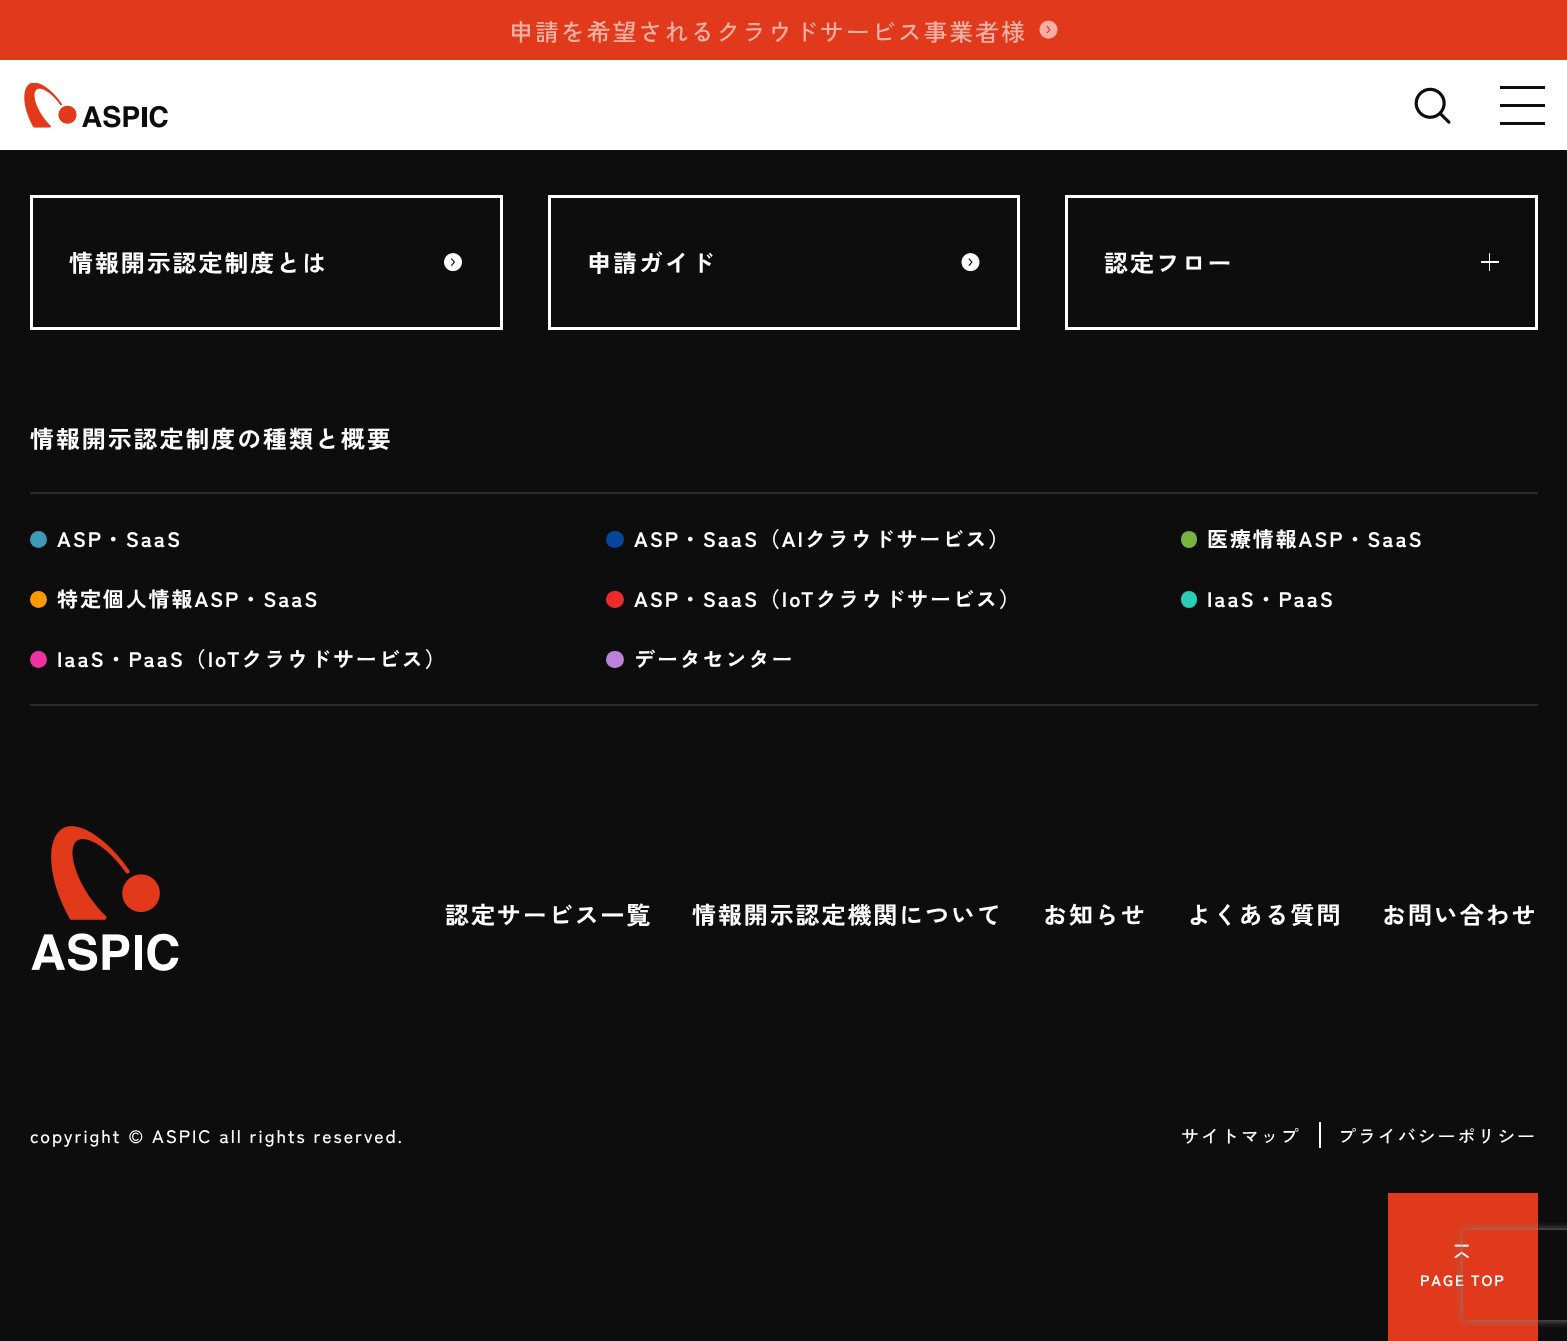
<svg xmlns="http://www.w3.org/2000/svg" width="1567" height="1341">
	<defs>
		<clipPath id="clip1"><path d="M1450 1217H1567V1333H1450ZM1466 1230H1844C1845.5 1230 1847 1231.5 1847 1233V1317C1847 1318.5 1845.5 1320 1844 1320H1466C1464.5 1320 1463 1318.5 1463 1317V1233C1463 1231.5 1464.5 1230 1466 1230Z" clip-rule="evenodd" /></clipPath>
	</defs>
	<rect width="100%" height="100%" fill="#0D0D0D" />
	<rect x="0" y="0" width="1567" height="60" fill="#E1391B" />
	<text x="509" y="41" font-family="Zen Kaku Gothic New" font-size="24" font-weight="500" letter-spacing="1.9" fill="#F3B0A4">申請を希望されるクラウドサービス事業者様</text>
	<image x="1039" y="20" width="19" height="19" href="assets/img1.png" />
	<rect x="0" y="60" width="1567" height="90" fill="#FFFFFF" />
	<image x="24" y="83" width="144" height="45" href="assets/img2.png" />
	<image x="1414" y="87" width="37" height="37" href="assets/img3.png" />
	<rect x="1500" y="86" width="45" height="3" fill="#0D0D0D" />
	<rect x="1500" y="104" width="45" height="3" fill="#0D0D0D" />
	<rect x="1500" y="122" width="45" height="3" fill="#0D0D0D" />
	<rect x="31.5" y="196.5" width="470" height="132" fill="none" stroke="#FFFFFF" stroke-width="3" />
	<text x="69" y="272" font-family="Zen Kaku Gothic New" font-size="24" font-weight="700" letter-spacing="1.9" fill="#FFFFFF">情報開示認定制度とは</text>
	<image x="444" y="253" width="18" height="19" href="assets/img4.png" />
	<rect x="549.5" y="196.5" width="469" height="132" fill="none" stroke="#FFFFFF" stroke-width="3" />
	<text x="587" y="272" font-family="Zen Kaku Gothic New" font-size="24" font-weight="700" letter-spacing="1.9" fill="#FFFFFF">申請ガイド</text>
	<image x="961" y="253" width="19" height="19" href="assets/img5.png" />
	<rect x="1066.5" y="196.5" width="470" height="132" fill="none" stroke="#FFFFFF" stroke-width="3" />
	<text x="1104" y="272" font-family="Zen Kaku Gothic New" font-size="24" font-weight="700" letter-spacing="1.9" fill="#FFFFFF">認定フロー</text>
	<rect x="1481" y="261" width="18" height="2" fill="#FFFFFF" />
	<rect x="1489" y="253" width="1" height="18" fill="#FFFFFF" />
	<text x="30" y="448" font-family="Zen Kaku Gothic New" font-size="24" font-weight="700" letter-spacing="1.9" fill="#FFFFFF">情報開示認定制度の種類と概要</text>
	<rect x="30" y="492" width="1508" height="2" fill="#2B2B2B" />
	<rect x="30" y="704" width="1508" height="2" fill="#2B2B2B" />
	<circle cx="38.5" cy="539.5" r="8.5" fill="#3C9CB5" />
	<text x="57" y="547" font-family="Zen Kaku Gothic New" font-size="21" font-weight="700" letter-spacing="1.9" fill="#FFFFFF">ASP・SaaS</text>
	<rect x="606" y="531" width="18" height="17" rx="8.5" fill="#05459B" />
	<text x="634" y="547" font-family="Zen Kaku Gothic New" font-size="21" font-weight="700" letter-spacing="1.9" fill="#FFFFFF">ASP・SaaS（AIクラウドサービス）</text>
	<rect x="1181" y="531" width="16" height="17" rx="8" fill="#78B444" />
	<text x="1207" y="547" font-family="Zen Kaku Gothic New" font-size="21" font-weight="700" letter-spacing="1.9" fill="#FFFFFF">医療情報ASP・SaaS</text>
	<circle cx="38.5" cy="599.5" r="8.5" fill="#FF9900" />
	<text x="57" y="607" font-family="Zen Kaku Gothic New" font-size="21" font-weight="700" letter-spacing="1.9" fill="#FFFFFF">特定個人情報ASP・SaaS</text>
	<rect x="606" y="591" width="18" height="17" rx="8.5" fill="#EC2C2C" />
	<text x="634" y="607" font-family="Zen Kaku Gothic New" font-size="21" font-weight="700" letter-spacing="1.9" fill="#FFFFFF">ASP・SaaS（IoTクラウドサービス）</text>
	<rect x="1181" y="591" width="16" height="17" rx="8" fill="#2BCDB5" />
	<text x="1207" y="607" font-family="Zen Kaku Gothic New" font-size="21" font-weight="700" letter-spacing="1.9" fill="#FFFFFF">IaaS・PaaS</text>
	<circle cx="38.5" cy="659.5" r="8.5" fill="#EC33A0" />
	<text x="57" y="667" font-family="Zen Kaku Gothic New" font-size="21" font-weight="700" letter-spacing="1.9" fill="#FFFFFF">IaaS・PaaS（IoTクラウドサービス）</text>
	<rect x="606" y="651" width="18" height="17" rx="8.5" fill="#BD81DB" />
	<text x="634" y="667" font-family="Zen Kaku Gothic New" font-size="21" font-weight="700" letter-spacing="1.9" fill="#FFFFFF">データセンター</text>
	<image x="31" y="826" width="148" height="145" href="assets/img6.png" />
	<g font-family="Zen Kaku Gothic New" font-size="24" font-weight="700" letter-spacing="1.9" fill="#FFFFFF">
		<text x="445" y="924">認定サービス一覧</text>
		<text x="692" y="924">情報開示認定機関について</text>
		<text x="1043" y="924">お知らせ</text>
		<text x="1187" y="924">よくある質問</text>
		<text x="1382" y="924">お問い合わせ</text>
	</g>
	<text x="30" y="1143" font-family="Zen Kaku Gothic New" font-size="18" font-weight="500" letter-spacing="1.9" fill="#FFFFFF">copyright © ASPIC all rights reserved.</text>
	<rect x="1319" y="1122" width="2" height="26" fill="#FFFFFF" />
	<g font-family="Zen Kaku Gothic New" font-size="18" font-weight="500" letter-spacing="1.9" fill="#FFFFFF">
		<text x="1181" y="1143">サイトマップ</text>
		<text x="1338" y="1143">プライバシーポリシー</text>
	</g>
	<rect x="1388" y="1193" width="150" height="148" fill="#E1391B" />
	<image x="1454" y="1244" width="15" height="14" href="assets/img7.png" />
	<text x="1420" y="1286" word-spacing="-1" font-family="Zen Kaku Gothic New" font-size="15" font-weight="700" letter-spacing="1.9" fill="#FFFFFF">PAGE TOP</text>
	<g clip-path="url(#clip1)">
		<rect x="1463" y="1230" width="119" height="90" rx="3" fill="#808080" filter="blur(4px)" />
	</g>
</svg>
